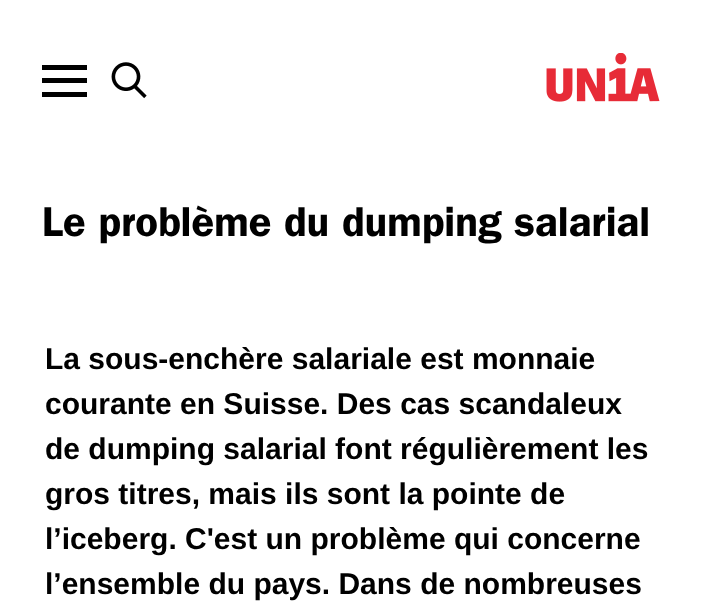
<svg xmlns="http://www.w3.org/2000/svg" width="702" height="613">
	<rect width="100%" height="100%" fill="#FFFFFF" />
	<rect x="42" y="65" width="45" height="5" fill="#000000" />
	<rect x="42" y="78" width="45" height="5" fill="#000000" />
	<rect x="42" y="92" width="45" height="5" fill="#000000" />
	<image x="111" y="62" width="36" height="37" href="assets/img1.png" />
	<image x="546" y="53" width="114" height="49" href="assets/img2.png" />
	<text x="42" y="236" font-family="'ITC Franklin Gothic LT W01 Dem'" font-size="42" font-weight="600" fill="#000000">Le problème du dumping salarial</text>
	<g font-family="Liberation Sans" font-size="30" font-weight="700" fill="#000000">
		<text x="45" y="369">La sous-enchère salariale est monnaie</text>
		<text x="45" y="414">courante en Suisse. Des cas scandaleux</text>
		<text x="45" y="459">de dumping salarial font régulièrement les</text>
		<text x="45" y="504">gros titres, mais ils sont la pointe de</text>
		<text x="45" y="549">l’iceberg. C'est un problème qui concerne</text>
		<text x="45" y="594">l’ensemble du pays. Dans de nombreuses</text>
	</g>
</svg>
